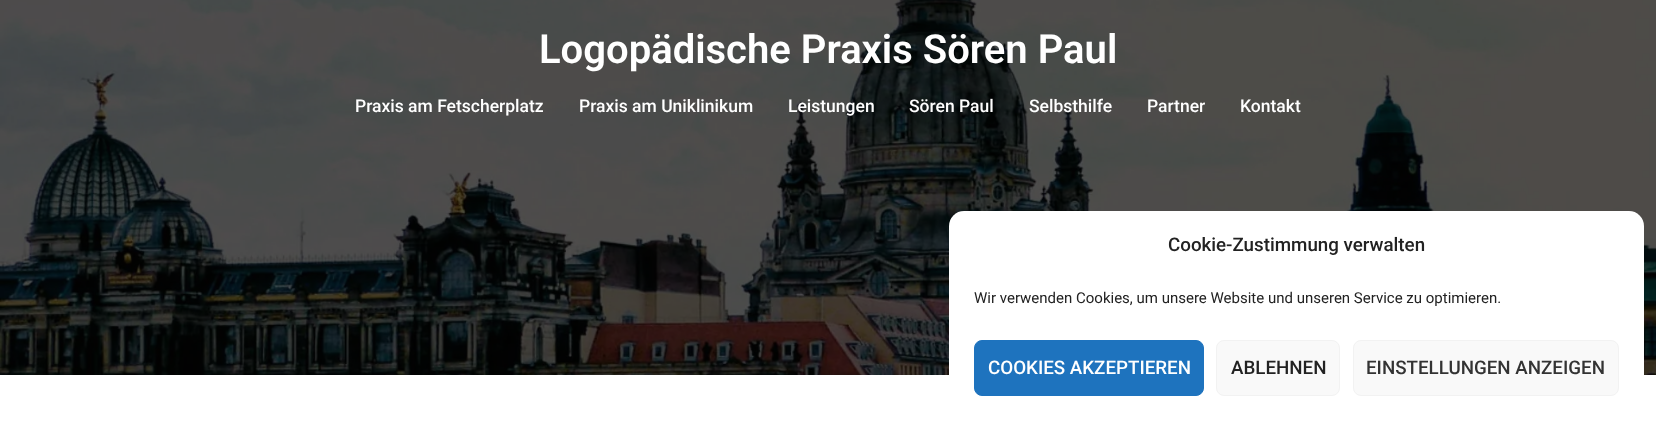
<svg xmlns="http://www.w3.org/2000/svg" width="1656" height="440">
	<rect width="100%" height="100%" fill="#FFFFFF" />
	<image x="0" y="0" width="1656" height="375" href="assets/img1.png" />
	<text x="539" y="63" font-family="Roboto" font-size="40" font-weight="600" fill="#FFFFFF">Logopädische Praxis Sören Paul</text>
	<g font-family="Roboto" font-size="17.5" font-weight="500" fill="#FFFFFF">
		<text x="355" y="112">Praxis am Fetscherplatz</text>
		<text x="579" y="112">Praxis am Uniklinikum</text>
		<text x="788" y="112">Leistungen</text>
		<text x="909" y="112">Sören Paul</text>
		<text x="1029" y="112">Selbsthilfe</text>
		<text x="1147" y="112">Partner</text>
		<text x="1240" y="112">Kontakt</text>
	</g>
	<rect x="949" y="211" width="695" height="217" rx="15" fill="#FFFFFF" />
	<text x="1168" y="251" font-family="Roboto" font-size="18.75" font-weight="500" fill="#222222">Cookie-Zustimmung verwalten</text>
	<text x="974" y="303" font-family="Roboto" font-size="15" fill="#222222">Wir verwenden Cookies, um unsere Website und unseren Service zu optimieren.</text>
	<rect x="974.5" y="340.5" width="229" height="55" rx="7.5" fill="#1E73BE" stroke="#1E73BE" />
	<text x="988" y="374" font-family="Roboto" font-size="18.75" font-weight="500" fill="#FFFFFF">COOKIES AKZEPTIEREN</text>
	<rect x="1216.5" y="340.5" width="123" height="55" rx="7.5" fill="#F9F9F9" stroke="#F2F2F2" />
	<text x="1231" y="374" font-family="Roboto" font-size="18.75" font-weight="500" fill="#222222">ABLEHNEN</text>
	<rect x="1353.5" y="340.5" width="265" height="55" rx="7.5" fill="#F9F9F9" stroke="#F2F2F2" />
	<text x="1366" y="374" font-family="Roboto" font-size="18.75" font-weight="500" fill="#333333">EINSTELLUNGEN ANZEIGEN</text>
</svg>
